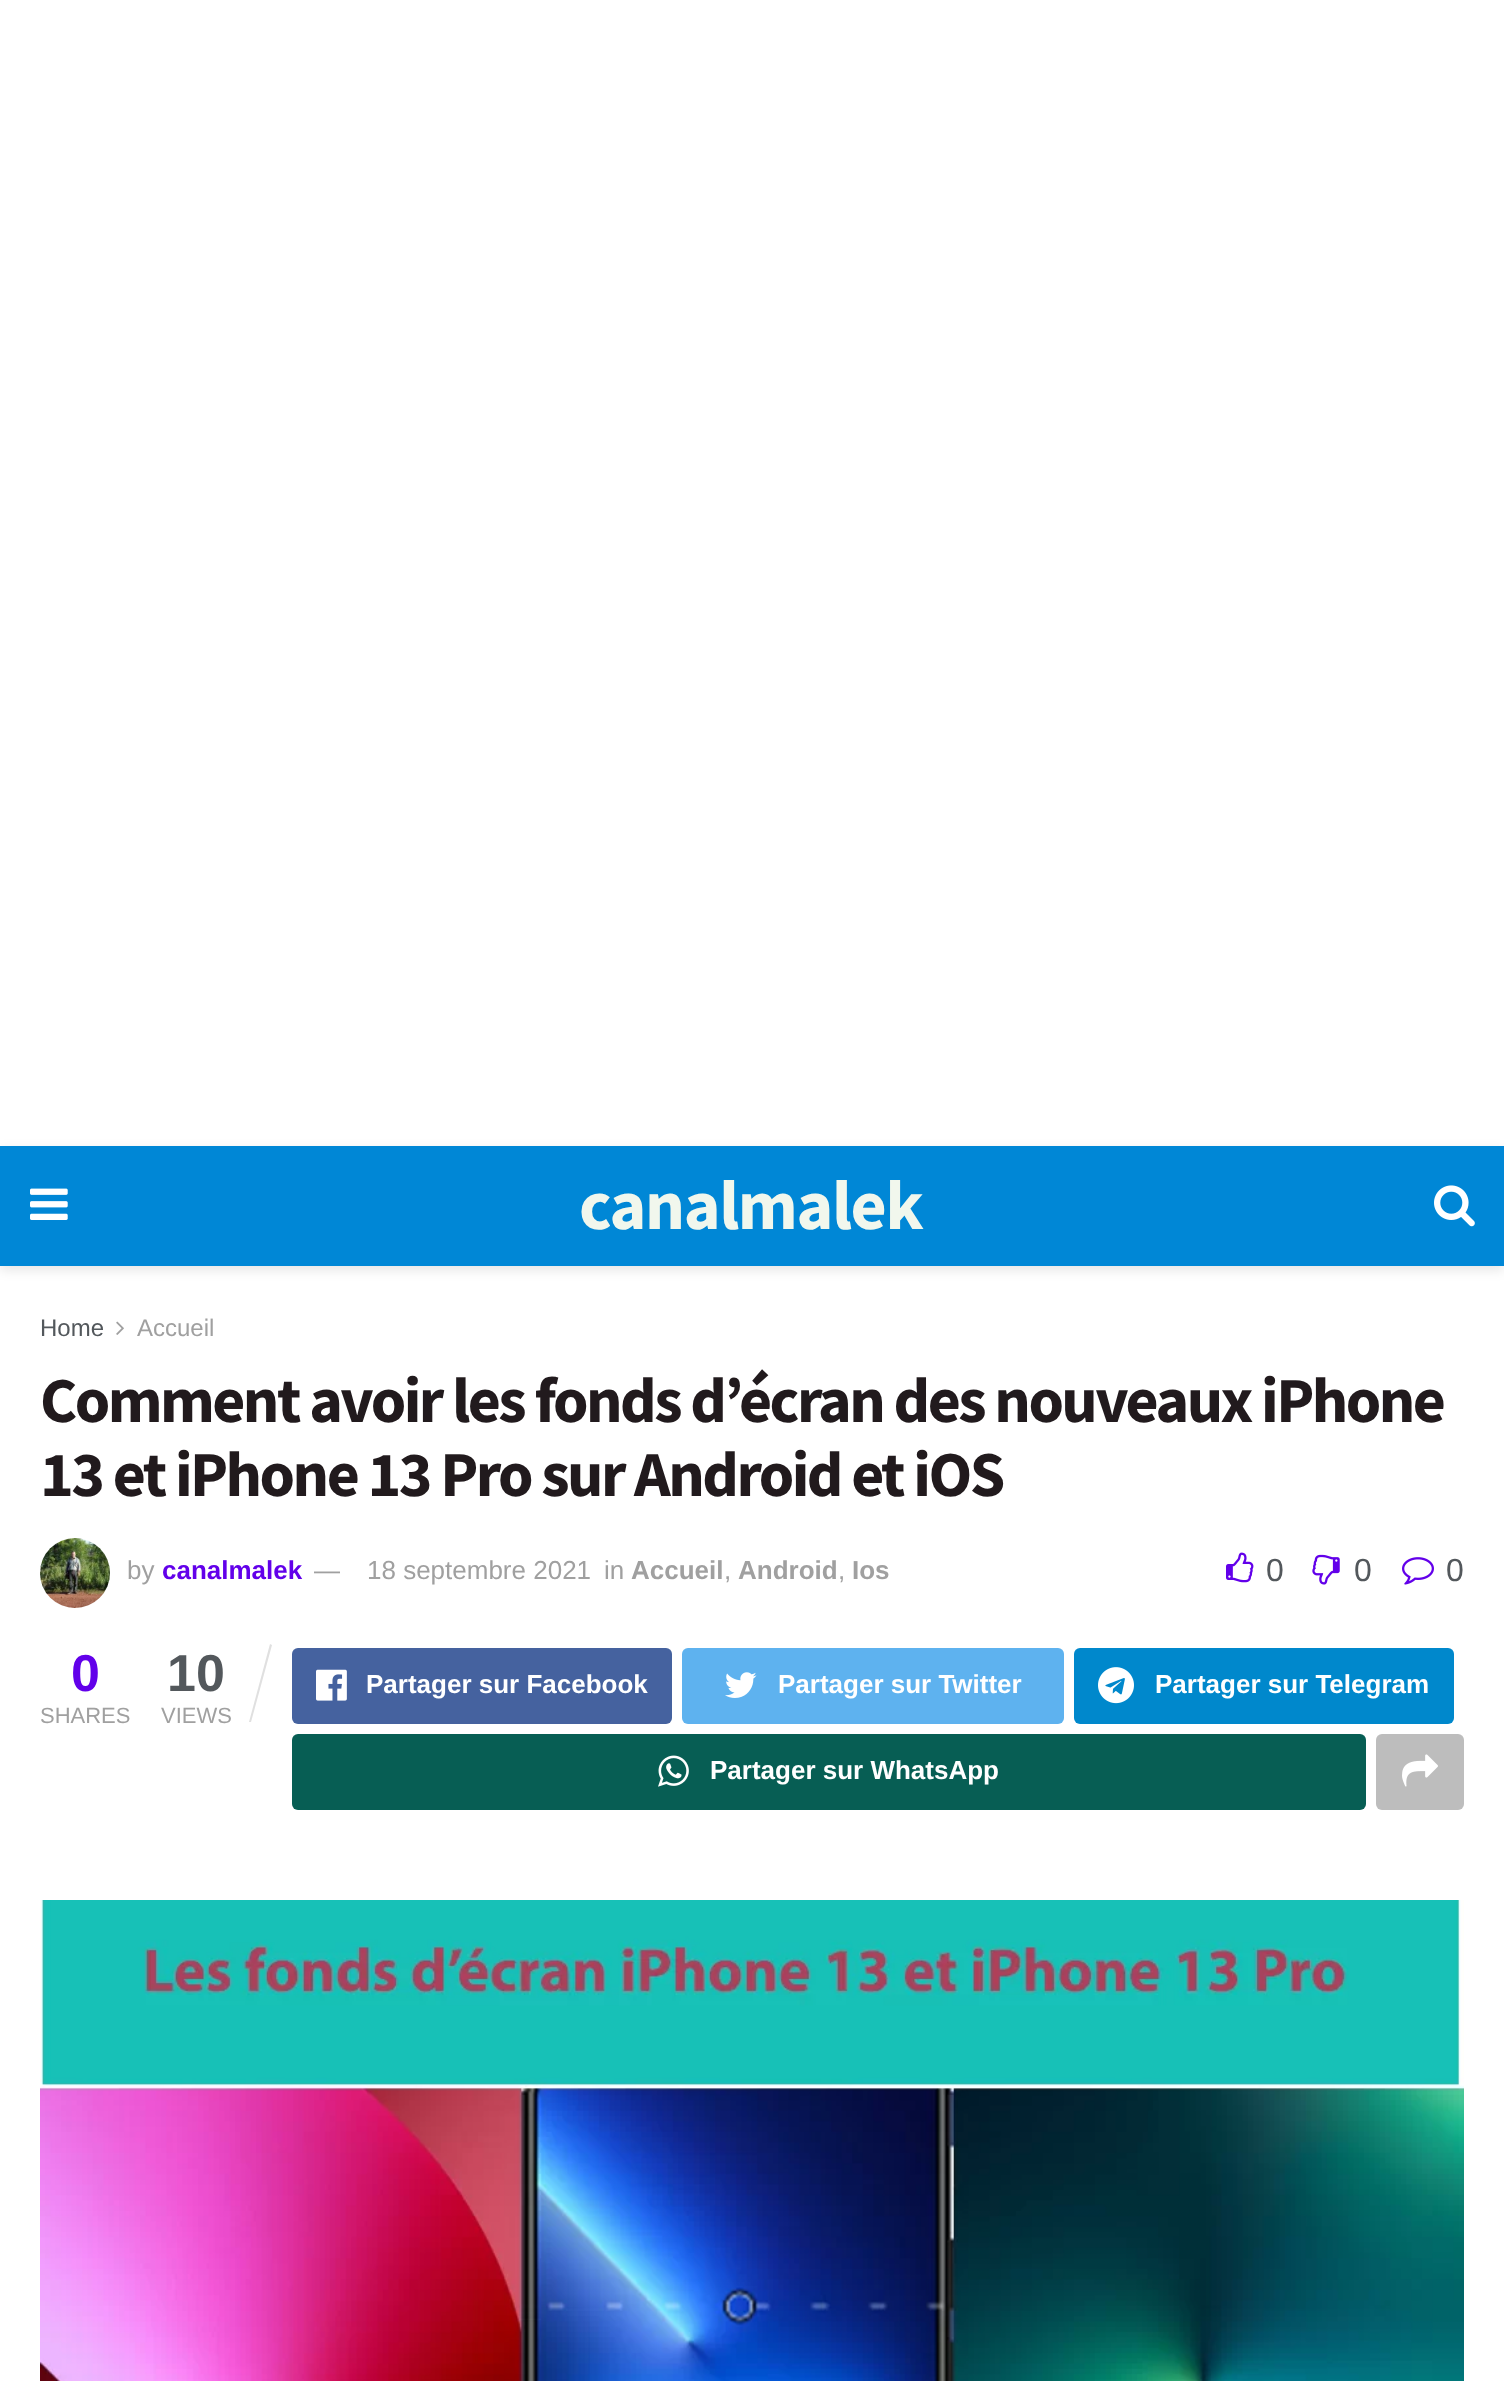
<svg xmlns="http://www.w3.org/2000/svg" width="1504" height="2381">
	<rect width="100%" height="100%" fill="#FFFFFF" />
	<rect x="0" y="1150" width="1504" height="120" fill="#000000" fill-opacity="0.1" filter="blur(6px)" />
	<rect x="0" y="1146" width="1504" height="120" fill="#0087D6" />
	<image x="30" y="1188" width="38" height="32" href="assets/img1.png" />
	<text x="579" y="1229" font-family="Source Sans Pro" font-size="70" font-weight="700" letter-spacing="-1.4" fill="#F1F7ED">canalmalek</text>
	<image x="1434" y="1185" width="41" height="42" href="assets/img2.png" />
	<text x="40" y="1336" font-family="Liberation Sans" font-size="24" fill="#53585C">Home</text>
	<image x="116" y="1321" width="8" height="14" href="assets/img3.png" />
	<text x="137" y="1336" font-family="Liberation Sans" font-size="24" fill="#A0A0A0">Accueil</text>
	<g font-family="Source Sans Pro" font-size="64" font-weight="700" letter-spacing="-2.55" fill="#211A1D">
		<text x="40" y="1422">Comment avoir les fonds d’écran des nouveaux iPhone</text>
		<text x="40" y="1496">13 et iPhone 13 Pro sur Android et iOS</text>
	</g>
	<image x="40" y="1538" width="70" height="70" href="assets/img4.png" />
	<text x="127" y="1579" font-family="Liberation Sans" font-size="26" fill="#A0A0A0">by</text>
	<text x="162" y="1579" font-family="Liberation Sans" font-size="26" font-weight="700" fill="#6200EA">canalmalek</text>
	<g font-family="Liberation Sans" font-size="26" fill="#A0A0A0">
		<text x="314" y="1579">—</text>
		<text x="367" y="1579">18 septembre 2021</text>
		<text x="604" y="1579">in</text>
	</g>
	<text x="631" y="1579" font-family="Liberation Sans" font-size="26" font-weight="700" fill="#A0A0A0">Accueil</text>
	<text x="724" y="1579" font-family="Liberation Sans" font-size="26" fill="#A0A0A0">,</text>
	<text x="738" y="1579" font-family="Liberation Sans" font-size="26" font-weight="700" fill="#A0A0A0">Android</text>
	<text x="838" y="1579" font-family="Liberation Sans" font-size="26" fill="#A0A0A0">,</text>
	<text x="852" y="1579" font-family="Liberation Sans" font-size="26" font-weight="700" fill="#A0A0A0">Ios</text>
	<image x="1226" y="1552" width="28" height="31" href="assets/img5.png" />
	<text x="1266" y="1581" font-family="Liberation Sans" font-size="32" fill="#53585C">0</text>
	<image x="1312" y="1554" width="28" height="31" href="assets/img6.png" />
	<text x="1354" y="1581" font-family="Liberation Sans" font-size="32" fill="#53585C">0</text>
	<image x="1402" y="1557" width="32" height="28" href="assets/img7.png" />
	<text x="1446" y="1581" font-family="Liberation Sans" font-size="32" fill="#53585C">0</text>
	<text x="71" y="1691" font-family="Liberation Sans" font-size="52" font-weight="700" fill="#6200EA">0</text>
	<text x="40" y="1723" font-family="Liberation Sans" font-size="22" fill="#A0A0A0">SHARES</text>
	<text x="167" y="1691" font-family="Liberation Sans" font-size="52" font-weight="700" fill="#53585C">10</text>
	<path d="M270 1644L272 1645L251 1722H249Z" fill="#E0E0E0" />
	<text x="161" y="1723" font-family="Liberation Sans" font-size="22" fill="#A0A0A0">VIEWS</text>
	<rect x="292" y="1648" width="380" height="76" rx="6" fill="#45629F" />
	<image x="316" y="1669" width="31" height="32" href="assets/img8.png" />
	<text x="366" y="1693" font-family="Liberation Sans" font-size="26" font-weight="700" fill="#FFFFFF">Partager sur Facebook</text>
	<rect x="682" y="1648" width="382" height="76" rx="6" fill="#5EB2EF" />
	<image x="725" y="1672" width="32" height="26" href="assets/img9.png" />
	<text x="778" y="1693" font-family="Liberation Sans" font-size="26" font-weight="700" fill="#FFFFFF">Partager sur Twitter</text>
	<rect x="1074" y="1648" width="380" height="76" rx="6" fill="#0088CC" />
	<image x="1098" y="1667" width="36" height="37" href="assets/img10.png" />
	<text x="1155" y="1693" font-family="Liberation Sans" font-size="26" font-weight="700" fill="#FFFFFF">Partager sur Telegram</text>
	<rect x="292" y="1734" width="1074" height="76" rx="6" fill="#075E54" />
	<image x="658" y="1755" width="31" height="32" href="assets/img11.png" />
	<text x="710" y="1779" font-family="Liberation Sans" font-size="26" font-weight="700" fill="#FFFFFF">Partager sur WhatsApp</text>
	<rect x="1376" y="1734" width="88" height="76" rx="6" fill="#BDBDBD" />
	<image x="1402" y="1754" width="36" height="33" href="assets/img12.png" />
	<image x="40" y="1900" width="1424" height="481" href="assets/img13.png" />
</svg>
